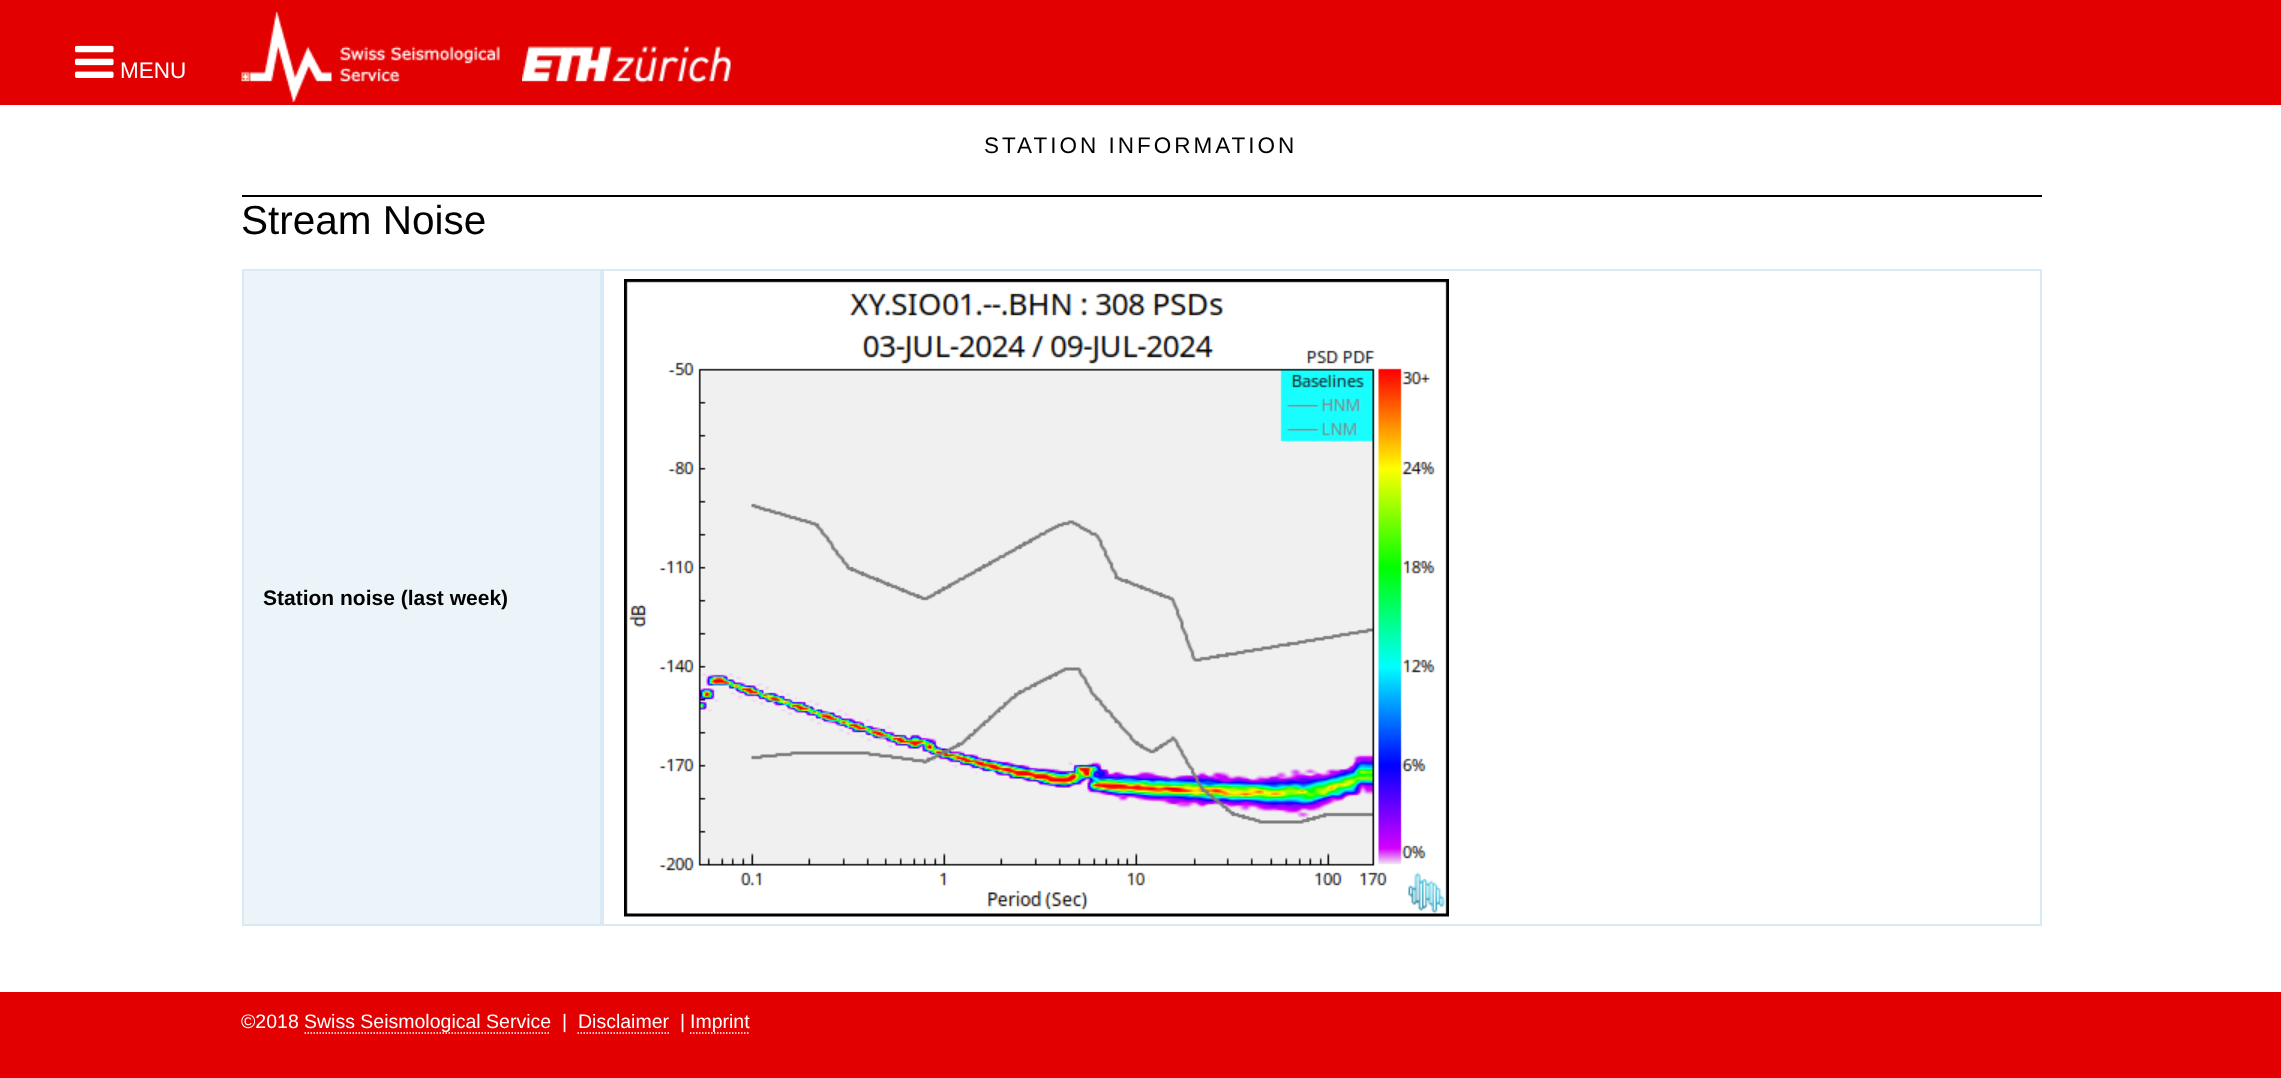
<svg xmlns="http://www.w3.org/2000/svg" width="2281" height="1078">
	<rect width="100%" height="100%" fill="#FFFFFF" />
	<rect x="0" y="0" width="2281" height="105" fill="#E20000" />
	<image x="75" y="45" width="39" height="33" href="assets/img1.png" />
	<text x="120" y="78" font-family="Liberation Sans" font-size="22.5" fill="#FFFFFF">MENU</text>
	<image x="241" y="12" width="259" height="90" href="assets/img2.png" />
	<image x="522" y="46" width="209" height="37" href="assets/img3.png" />
	<text x="984" y="153" font-family="Liberation Sans" font-size="22.5" letter-spacing="3" fill="#000000">STATION INFORMATION</text>
	<rect x="242" y="195" width="1800" height="2" fill="#000000" />
	<text x="241" y="234" font-family="Liberation Sans" font-size="40.5" fill="#000000">Stream Noise</text>
	<rect x="243" y="270" width="358" height="655" fill="#EBF4F9" stroke="#D8EAF4" stroke-width="2" />
	<text x="263" y="605" font-family="Liberation Sans" font-size="21" font-weight="700" fill="#000000">Station noise (last week)</text>
	<rect x="603" y="270" width="1438" height="655" fill="none" stroke="#D8EAF4" stroke-width="2" />
	<image x="624" y="279" width="825" height="638" href="assets/img4.png" />
	<rect x="0" y="992" width="2281" height="86" fill="#E20000" />
	<text x="241" y="1028" font-family="Liberation Sans" font-size="19.5" fill="#FFFFFF">©2018</text>
	<path d="M304.5 1033H550.5" fill="none" stroke="#FFFFFF" stroke-width="1.5" stroke-dasharray="1.5 1.5" />
	<g font-family="Liberation Sans" font-size="19.5" fill="#FFFFFF">
		<text x="304" y="1028">Swiss Seismological Service</text>
		<text x="562" y="1028">|</text>
		<text x="578" y="1028">Disclaimer</text>
	</g>
	<path d="M577.5 1033H669" fill="none" stroke="#FFFFFF" stroke-width="1.5" stroke-dasharray="1.5 1.5" />
	<text x="680" y="1028" font-family="Liberation Sans" font-size="19.5" fill="#FFFFFF">|</text>
	<path d="M690 1033H750" fill="none" stroke="#FFFFFF" stroke-width="1.5" stroke-dasharray="1.5 1.5" />
	<text x="690" y="1028" font-family="Liberation Sans" font-size="19.5" fill="#FFFFFF">Imprint</text>
</svg>
